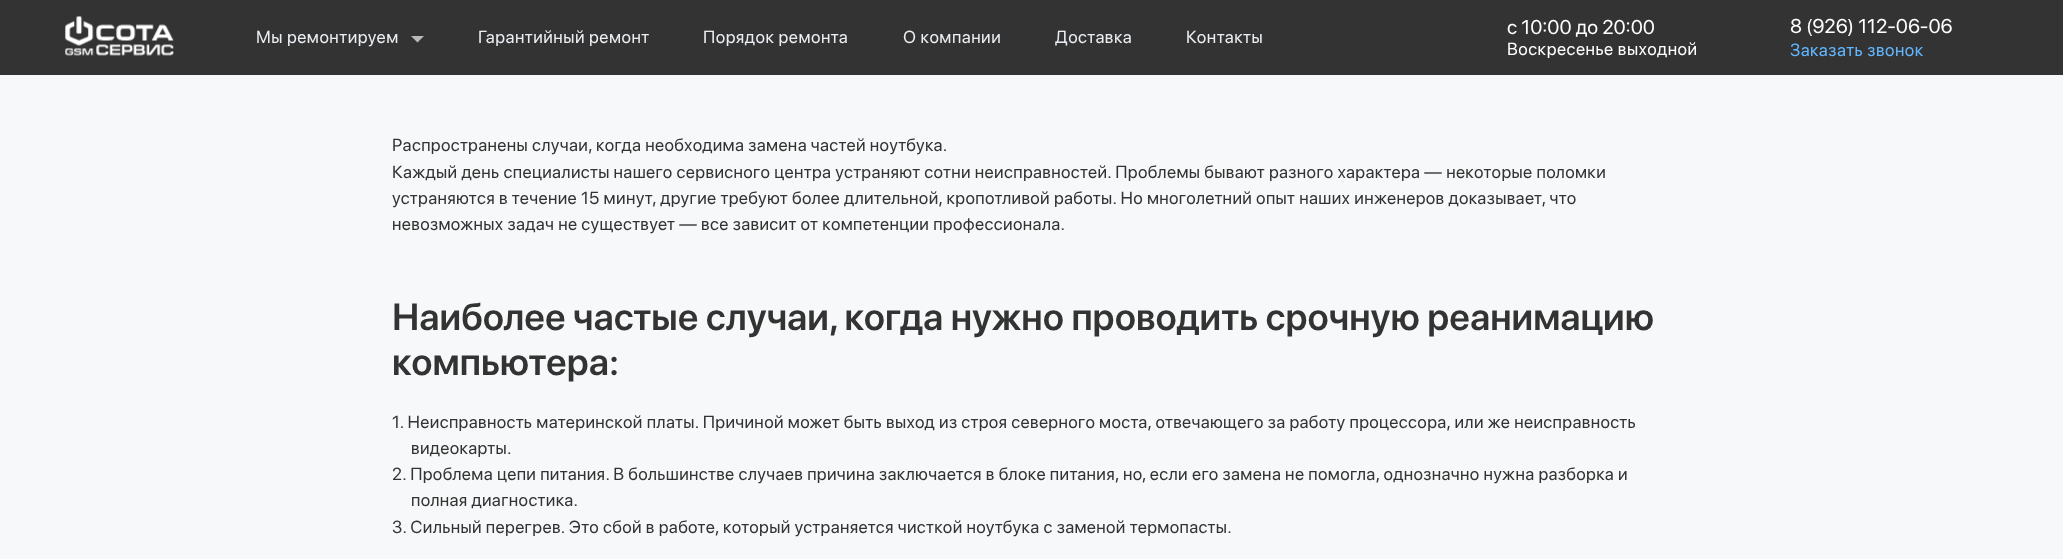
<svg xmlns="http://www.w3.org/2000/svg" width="2063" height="559">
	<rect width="100%" height="100%" fill="#F7F8F9" />
	<rect x="0" y="0" width="2063" height="75" fill="#333333" />
	<image x="65" y="16" width="109" height="40" href="assets/img1.png" />
	<text x="256" y="43" font-family="SF Pro Display" font-size="17.5" letter-spacing="0.5" fill="#EAEEF2">Мы ремонтируем</text>
	<path d="M411 36H424L417.5 42.5Z" fill="#B9B9B9" />
	<g font-family="SF Pro Display" font-size="17.5" letter-spacing="0.5" fill="#EAEEF2">
		<text x="478" y="43">Гарантийный ремонт</text>
		<text x="703" y="43">Порядок ремонта</text>
		<text x="903" y="43">О компании</text>
		<text x="1055" y="43">Доставка</text>
		<text x="1186" y="43">Контакты</text>
	</g>
	<text x="1507" y="34" font-family="SF Pro Display" font-size="20" fill="#FFFFFF">с 10:00 до 20:00</text>
	<text x="1507" y="55" font-family="SF Pro Display" font-size="17.5" letter-spacing="0.5" fill="#FFFFFF">Воскресенье выходной</text>
	<text x="1790" y="33" font-family="SF Pro Display" font-size="20" fill="#FFFFFF">8 (926) 112-06-06</text>
	<text x="1790" y="56" font-family="SF Pro Display" font-size="17.5" letter-spacing="0.5" fill="#62B6FF">Заказать звонок</text>
	<g font-family="SF Pro Display" font-size="17.5" letter-spacing="0.35" fill="#333333">
		<text x="392" y="151">Распространены случаи, когда необходима замена частей ноутбука.</text>
		<text x="392" y="178">Каждый день специалисты нашего сервисного центра устраняют сотни неисправностей. Проблемы бывают разного характера — некоторые поломки</text>
		<text x="392" y="204">устраняются в течение 15 минут, другие требуют более длительной, кропотливой работы. Но многолетний опыт наших инженеров доказывает, что</text>
		<text x="392" y="230">невозможных задач не существует — все зависит от компетенции профессионала.</text>
	</g>
	<g font-family="SF Pro Display" font-size="37.5" font-weight="600" fill="#333333">
		<text x="392" y="330">Наиболее частые случаи, когда нужно проводить срочную реанимацию</text>
		<text x="392" y="375">компьютера:</text>
	</g>
	<g font-family="SF Pro Display" font-size="17.5" letter-spacing="0.35" fill="#333333">
		<text x="392" y="428">1. Неисправность материнской платы. Причиной может быть выход из строя северного моста, отвечающего за работу процессора, или же неисправность</text>
		<text x="411" y="454">видеокарты.</text>
		<text x="392" y="480">2. Проблема цепи питания. В большинстве случаев причина заключается в блоке питания, но, если его замена не помогла, однозначно нужна разборка и</text>
		<text x="411" y="506">полная диагностика.</text>
		<text x="392" y="533">3. Сильный перегрев. Это сбой в работе, который устраняется чисткой ноутбука с заменой термопасты.</text>
	</g>
</svg>
